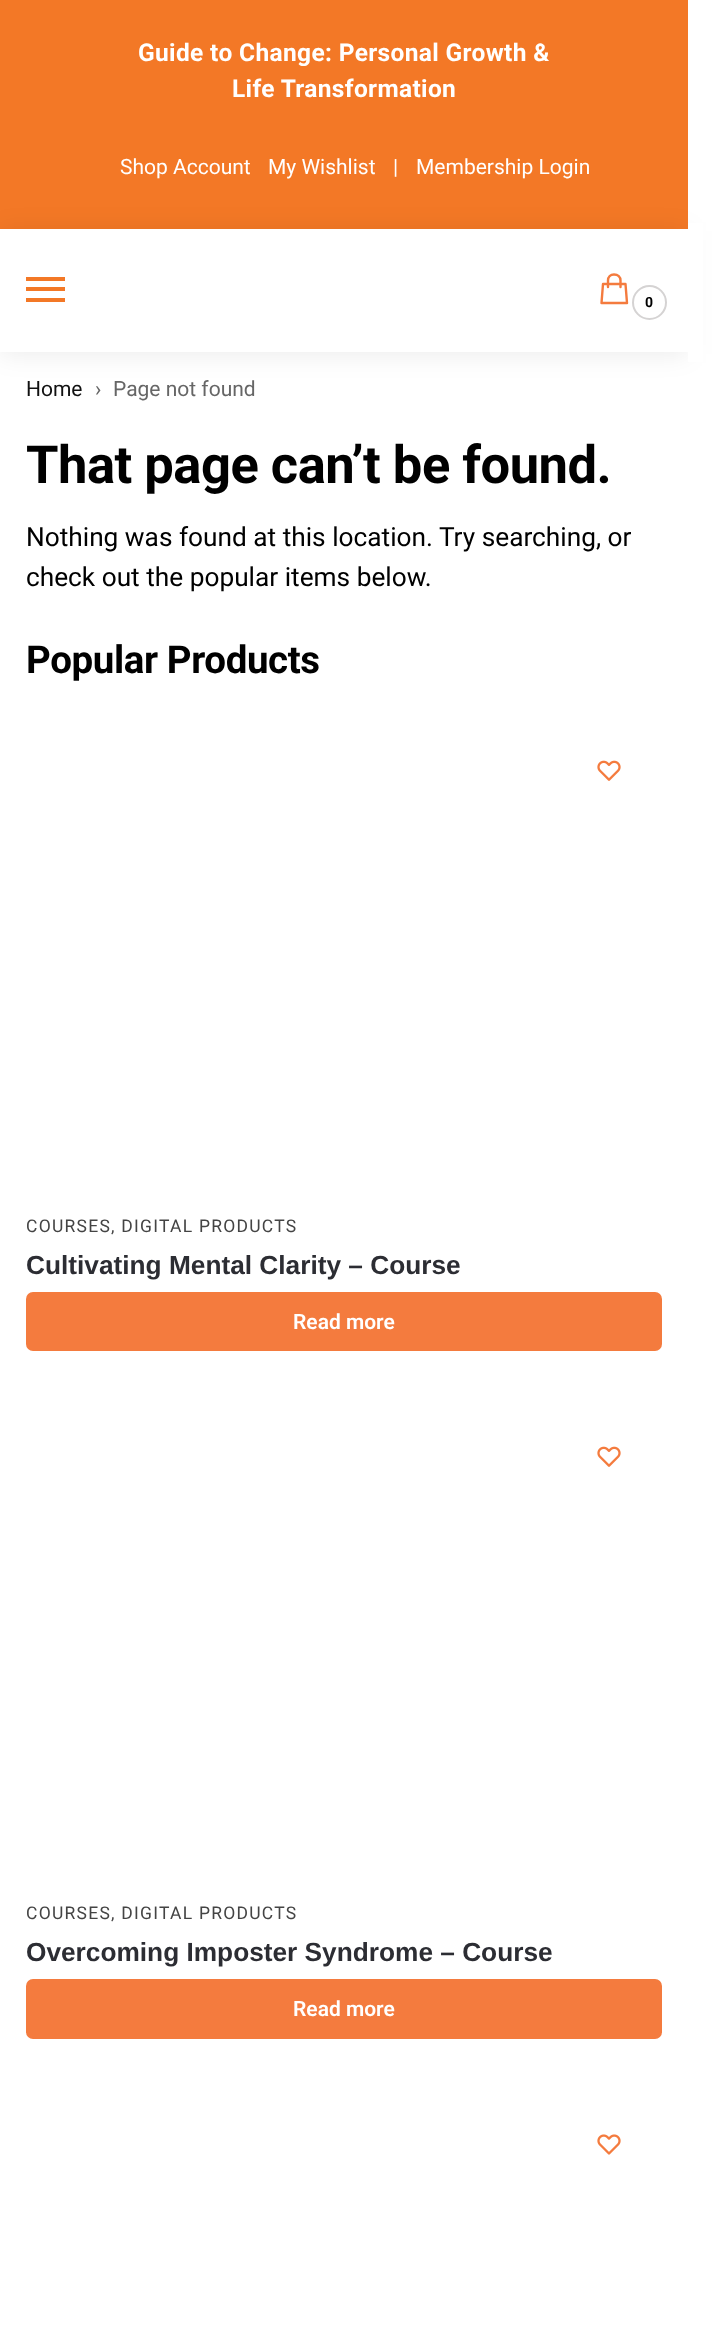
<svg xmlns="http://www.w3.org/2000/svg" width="714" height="2341">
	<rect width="100%" height="100%" fill="#FFFFFF" />
	<rect x="0" y="0" width="688" height="229" fill="#F37826" />
	<g font-family="Roboto" font-size="24.5" font-weight="700" letter-spacing="0.35" fill="#FFFFFF">
		<text x="138" y="61">Guide to Change: Personal Growth &amp;</text>
		<text x="232" y="97">Life Transformation</text>
	</g>
	<g font-family="Roboto" font-size="21" fill="#FFFFFF">
		<text x="120" y="174">Shop Account</text>
		<text x="268" y="174">My Wishlist</text>
		<text x="393" y="174">|</text>
		<text x="416" y="174">Membership Login</text>
	</g>
	<rect x="0" y="231" width="688" height="123" fill="#000000" fill-opacity="0.08" filter="blur(13px)" />
	<rect x="0" y="229" width="688" height="123" fill="#FFFFFF" />
	<rect x="26" y="277" width="39" height="4" fill="#F37826" />
	<rect x="26" y="287" width="39" height="4" fill="#F37826" />
	<rect x="26" y="298" width="39" height="4" fill="#F37826" />
	<path d="M620.5 287V280.5C620.5 277 618 274.5 614 274.5C610.5 274.5 608 277 608 280.5V287M603 284H625.5L627 303H601.5Z" fill="none" stroke="#F47B3E" stroke-width="2.4" stroke-linecap="round" stroke-linejoin="round" />
	<circle cx="649.5" cy="302.5" r="16.5" fill="none" stroke="#D5D3D3" stroke-width="2" />
	<text x="645" y="307" font-family="Roboto" font-size="14" font-weight="700" fill="#000000">0</text>
	<rect x="688" y="223" width="15" height="139" fill="#FFFFFF" />
	<text x="26" y="396" font-family="Roboto" font-size="21" fill="#111111">Home</text>
	<g font-family="Roboto" font-size="21" fill="#666666">
		<text x="95" y="396">›</text>
		<text x="113" y="396">Page not found</text>
	</g>
	<text x="26" y="483" font-family="Roboto" font-size="52.5" font-weight="700" letter-spacing="-0.5" fill="#000000">That page can’t be found.</text>
	<g font-family="Roboto" font-size="26.25" fill="#000000">
		<text x="26" y="546">Nothing was found at this location. Try searching, or</text>
		<text x="26" y="586">check out the popular items below.</text>
	</g>
	<text x="26" y="673" font-family="Roboto" font-size="38.5" font-weight="700" letter-spacing="-0.4" fill="#000000">Popular Products</text>
	<image x="597" y="760" width="24" height="21" href="assets/img1.png" />
	<g font-family="Roboto" font-size="17.5" letter-spacing="1.25" fill="#444444">
		<text x="26" y="1232">COURSES</text>
		<text x="111" y="1232">, DIGITAL PRODUCTS</text>
	</g>
	<text x="26" y="1274" font-family="Liberation Sans" font-size="26.25" font-weight="700" fill="#2C2D33">Cultivating Mental Clarity – Course</text>
	<rect x="26" y="1292" width="636" height="59" rx="7" fill="#F47B3E" />
	<text x="293" y="1329" font-family="Roboto" font-size="21" font-weight="600" fill="#FFFFFF">Read more</text>
	<image x="597" y="1446" width="24" height="21" href="assets/img1.png" />
	<g font-family="Roboto" font-size="17.5" letter-spacing="1.25" fill="#444444">
		<text x="26" y="1919">COURSES</text>
		<text x="111" y="1919">, DIGITAL PRODUCTS</text>
	</g>
	<text x="26" y="1961" font-family="Liberation Sans" font-size="26.25" font-weight="700" fill="#2C2D33">Overcoming Imposter Syndrome – Course</text>
	<rect x="26" y="1979" width="636" height="60" rx="7" fill="#F47B3E" />
	<text x="293" y="2016" font-family="Roboto" font-size="21" font-weight="600" fill="#FFFFFF">Read more</text>
	<image x="597" y="2134" width="24" height="21" href="assets/img2.png" />
</svg>
